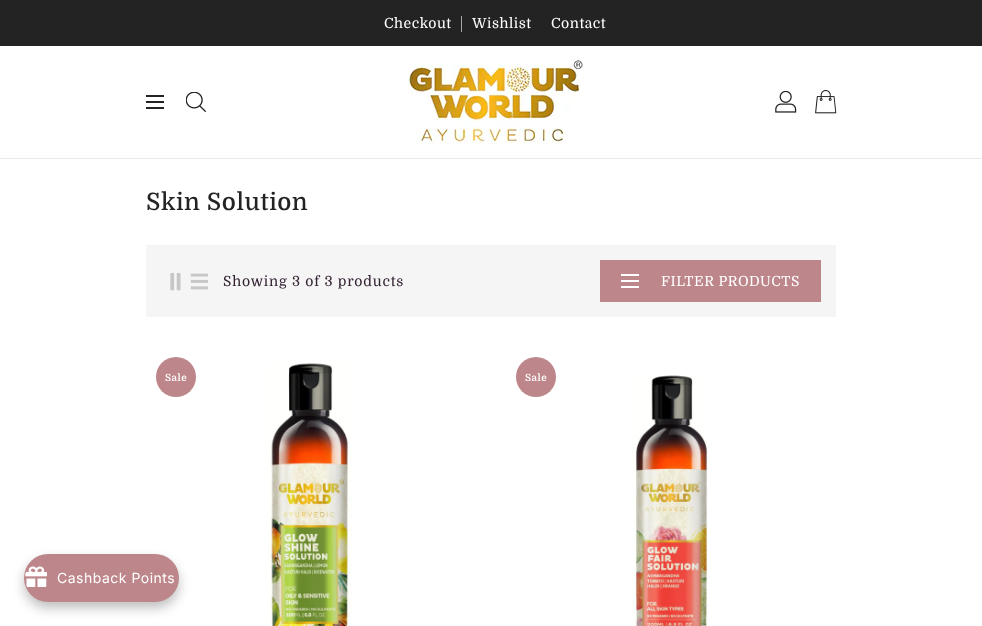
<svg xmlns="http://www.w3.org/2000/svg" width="982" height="626">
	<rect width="100%" height="100%" fill="#FFFFFF" />
	<rect x="0" y="0" width="982" height="46" fill="#232323" />
	<text x="384" y="28" font-family="Domine" font-size="14" letter-spacing="0.5" fill="#FFFFFF">Checkout</text>
	<rect x="461" y="16" width="1" height="16" fill="#A7A7A7" />
	<g font-family="Domine" font-size="14" letter-spacing="0.5" fill="#FFFFFF">
		<text x="472" y="28">Wishlist</text>
		<text x="551" y="28">Contact</text>
	</g>
	<rect x="0" y="158" width="982" height="1" fill="#E9E9E9" />
	<rect x="146" y="95" width="18" height="2" fill="#232323" />
	<rect x="146" y="101" width="18" height="2" fill="#232323" />
	<rect x="146" y="107" width="18" height="2" fill="#232323" />
	<image x="186" y="92" width="20" height="20" href="assets/img1.png" />
	<image x="407" y="60" width="176" height="84" href="assets/img2.png" />
	<image x="775" y="91" width="22" height="22" href="assets/img3.png" />
	<image x="815" y="90" width="22" height="24" href="assets/img4.png" />
	<text x="146" y="210" font-family="Domine" font-size="24" font-weight="500" letter-spacing="0.5" fill="#232323">Skin Solution</text>
	<rect x="146" y="245" width="690" height="72" fill="#F5F5F5" />
	<image x="170" y="273" width="11" height="18" href="assets/img5.png" />
	<image x="190" y="273" width="18" height="17" href="assets/img6.png" />
	<text x="223" y="286" font-family="Domine" font-size="14" letter-spacing="0.8" fill="#332233">Showing 3 of 3 products</text>
	<rect x="600" y="260" width="221" height="42" fill="#BD868A" />
	<rect x="621" y="274" width="18" height="2" fill="#FFFFFF" />
	<rect x="621" y="280" width="18" height="2" fill="#FFFFFF" />
	<rect x="621" y="286" width="18" height="2" fill="#FFFFFF" />
	<text x="661" y="286" font-family="Domine" font-size="14" letter-spacing="0.5" fill="#FFFFFF">FILTER PRODUCTS</text>
	<circle cx="176" cy="377" r="20" fill="#BD868A" />
	<text x="165" y="381" font-family="Domine" font-size="10" font-weight="600" letter-spacing="0.5" fill="#FFFFFF">Sale</text>
	<image x="267" y="363" width="85" height="263" href="assets/img7.png" />
	<circle cx="536" cy="377" r="20" fill="#BD868A" />
	<text x="525" y="381" font-family="Domine" font-size="10" font-weight="600" letter-spacing="0.5" fill="#FFFFFF">Sale</text>
	<image x="632" y="375" width="76" height="251" href="assets/img8.png" />
	<rect x="24" y="560" width="155" height="48" rx="24" fill="#000000" fill-opacity="0.25" filter="blur(6px)" />
	<rect x="24" y="554" width="155" height="48" rx="24" fill="#BD868A" />
	<image x="25" y="566" width="22" height="21" href="assets/img9.png" />
	<text x="57" y="583" font-family="Inter" font-size="14" letter-spacing="0.5" fill="#FFFFFF">Cashback Points</text>
</svg>
